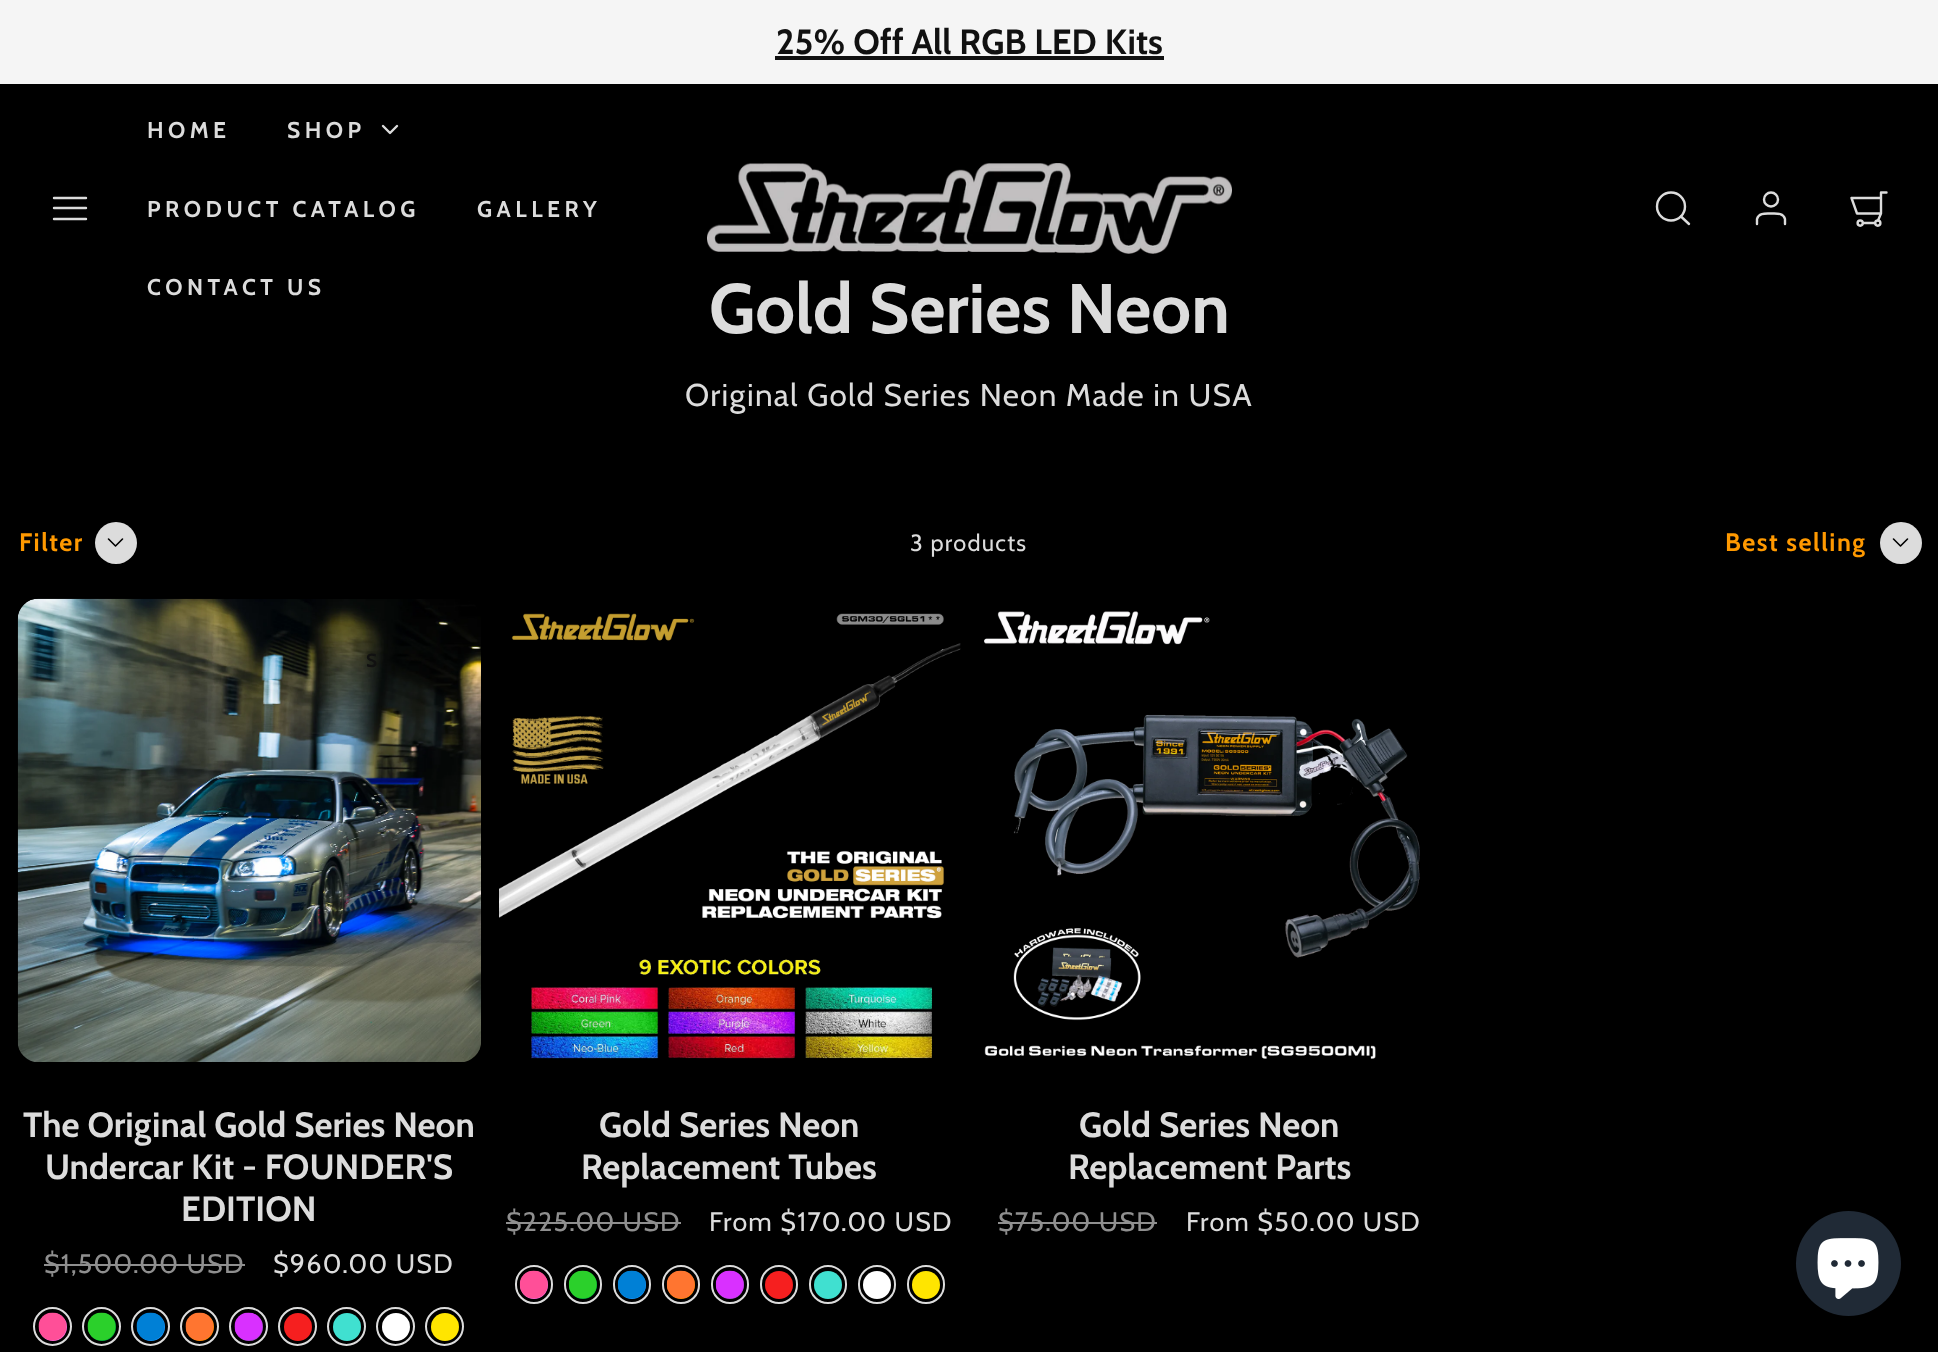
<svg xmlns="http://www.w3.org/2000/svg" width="1938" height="1352">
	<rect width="100%" height="100%" fill="#000000" />
	<rect x="0" y="0" width="1938" height="84" fill="#F5F5F5" />
	<text x="776" y="54" font-family="Cabin" font-size="35" font-weight="700" fill="#111111">25% Off All RGB LED Kits</text>
	<rect x="775" y="56" width="389" height="4" fill="#111111" />
	<path d="M54 208H86M54 198H86M54 219H86" fill="none" stroke="#DCDCDC" stroke-width="2.4" stroke-linecap="round" stroke-linejoin="round" />
	<g font-family="Cabin" font-size="22.75" font-weight="700" letter-spacing="4.5" fill="#DCDCDC">
		<text x="147" y="138">HOME</text>
		<text x="287" y="138">SHOP</text>
	</g>
	<path d="M383 126L390 133L397 126" fill="none" stroke="#DCDCDC" stroke-width="2.4" stroke-linecap="round" stroke-linejoin="round" />
	<g font-family="Cabin" font-size="22.75" font-weight="700" letter-spacing="4.5" fill="#DCDCDC">
		<text x="147" y="217">PRODUCT CATALOG</text>
		<text x="477" y="217">GALLERY</text>
		<text x="147" y="295">CONTACT US</text>
	</g>
	<image x="707" y="163" width="525" height="91" href="assets/img1.png" />
	<circle cx="1671" cy="206.5" r="14" fill="none" stroke="#DCDCDC" stroke-width="2.4" />
	<path d="M1689 224L1681 216.5" fill="none" stroke="#DCDCDC" stroke-width="2.4" stroke-linecap="round" stroke-linejoin="round" />
	<path d="M1785 224V219C1783.5 212.5 1776 213.5 1771 213.5C1766 213.5 1758.5 212.5 1757 219V224" fill="none" stroke="#DCDCDC" stroke-width="2.4" stroke-linecap="round" stroke-linejoin="round" />
	<circle cx="1771" cy="199.5" r="7" fill="none" stroke="#DCDCDC" stroke-width="2.4" />
	<path d="M1878 220.5L1881 213.5H1857L1851.5 198H1881M1886.5 192.5H1881V213.5" fill="none" stroke="#DCDCDC" stroke-width="2.4" stroke-linecap="round" stroke-linejoin="round" />
	<circle cx="1877.8" cy="223.1" r="2.6" fill="none" stroke="#DCDCDC" stroke-width="2.4" />
	<circle cx="1860.2" cy="223.1" r="2.6" fill="none" stroke="#DCDCDC" stroke-width="2.4" />
	<path d="M1863 223H1875" fill="none" stroke="#DCDCDC" stroke-width="2.4" stroke-linecap="round" stroke-linejoin="round" />
	<text x="709" y="333" font-family="Cabin" font-size="70" font-weight="700" fill="#DCDCDC">Gold Series Neon</text>
	<text x="685" y="406" font-family="Cabin" font-size="31.5" letter-spacing="1.25" fill="#DCDCDC">Original Gold Series Neon Made in USA</text>
	<text x="19" y="551" font-family="Cabin" font-size="25.25" font-weight="700" letter-spacing="1.5" fill="#FF9900">Filter</text>
	<circle cx="116" cy="543" r="21" fill="#DCDCDC" />
	<path d="M108.5 539L115.5 546L122.5 539" fill="none" stroke="#000000" stroke-width="1.6" stroke-linecap="round" stroke-linejoin="round" />
	<text x="910" y="551" font-family="Cabin" font-size="23.5" letter-spacing="1.25" fill="#DCDCDC">3 products</text>
	<text x="1725" y="551" font-family="Cabin" font-size="25.25" font-weight="700" letter-spacing="1.5" fill="#FF9900">Best selling</text>
	<circle cx="1901" cy="543" r="21" fill="#DCDCDC" />
	<path d="M1893.5 539L1900.5 546L1907.5 539" fill="none" stroke="#000000" stroke-width="1.6" stroke-linecap="round" stroke-linejoin="round" />
	<image x="17" y="598" width="464" height="464" href="assets/img2.png" />
	<text x="366" y="667" font-family="Cabin" font-size="19" font-weight="700" letter-spacing="2" fill="#111111">S</text>
	<g font-family="Cabin" font-size="35" font-weight="700" fill="#DCDCDC">
		<text x="23" y="1137">The Original Gold Series Neon</text>
		<text x="45" y="1179">Undercar Kit - FOUNDER'S</text>
		<text x="181" y="1221">EDITION</text>
	</g>
	<text x="44" y="1273" font-family="Cabin" font-size="26.75" letter-spacing="1.25" fill="#8F8F8F">$1,500.00 USD</text>
	<rect x="44" y="1264" width="201" height="2" fill="#8F8F8F" />
	<text x="273" y="1273" font-family="Cabin" font-size="26.75" letter-spacing="1.25" fill="#DCDCDC">$960.00 USD</text>
	<circle cx="52.5" cy="1326.5" r="18.5" fill="none" stroke="#DCDCDC" stroke-width="2" />
	<circle cx="53" cy="1327" r="14" fill="#FF6CDC" />
	<image x="38" y="1312" width="29" height="29" href="assets/img3.png" />
	<circle cx="101.5" cy="1326.5" r="18.5" fill="none" stroke="#DCDCDC" stroke-width="2" />
	<circle cx="102" cy="1327" r="14" fill="#05AA3D" />
	<image x="87" y="1312" width="29" height="29" href="assets/img4.png" />
	<circle cx="150.5" cy="1326.5" r="18.5" fill="none" stroke="#DCDCDC" stroke-width="2" />
	<circle cx="151" cy="1327" r="14" fill="#1897FD" />
	<image x="136" y="1312" width="29" height="29" href="assets/img5.png" />
	<circle cx="199.5" cy="1326.5" r="18.5" fill="none" stroke="#DCDCDC" stroke-width="2" />
	<circle cx="200" cy="1327" r="14" fill="#FF8A00" />
	<image x="185" y="1312" width="29" height="29" href="assets/img6.png" />
	<circle cx="248.5" cy="1326.5" r="18.5" fill="none" stroke="#DCDCDC" stroke-width="2" />
	<circle cx="249" cy="1327" r="14" fill="#A54DCF" />
	<image x="234" y="1312" width="29" height="29" href="assets/img7.png" />
	<circle cx="297.5" cy="1326.5" r="18.5" fill="none" stroke="#DCDCDC" stroke-width="2" />
	<circle cx="298" cy="1327" r="14" fill="#F61F1F" />
	<circle cx="346.5" cy="1326.5" r="18.5" fill="none" stroke="#DCDCDC" stroke-width="2" />
	<circle cx="347" cy="1327" r="14" fill="#40E0D0" />
	<circle cx="395.5" cy="1326.5" r="18.5" fill="none" stroke="#DCDCDC" stroke-width="2" />
	<circle cx="396" cy="1327" r="14" fill="#FFFFFF" />
	<circle cx="444.5" cy="1326.5" r="18.5" fill="none" stroke="#DCDCDC" stroke-width="2" />
	<circle cx="445" cy="1327" r="14" fill="#FFE500" />
	<image x="499" y="613" width="462" height="446" href="assets/img8.png" />
	<g font-family="Cabin" font-size="35" font-weight="700" fill="#DCDCDC">
		<text x="599" y="1137">Gold Series Neon</text>
		<text x="581" y="1179">Replacement Tubes</text>
	</g>
	<text x="506" y="1231" font-family="Cabin" font-size="26.75" letter-spacing="1.25" fill="#8F8F8F">$225.00 USD</text>
	<rect x="506" y="1222" width="175" height="2" fill="#8F8F8F" />
	<text x="709" y="1231" font-family="Cabin" font-size="26.75" letter-spacing="1.25" fill="#DCDCDC">From $170.00 USD</text>
	<rect x="516" y="1266" width="36" height="37" rx="18" fill="none" stroke="#DCDCDC" stroke-width="2" />
	<circle cx="534" cy="1285" r="14" fill="#FF6CDC" />
	<image x="519" y="1270" width="29" height="29" href="assets/img9.png" />
	<rect x="565" y="1266" width="36" height="37" rx="18" fill="none" stroke="#DCDCDC" stroke-width="2" />
	<circle cx="583" cy="1285" r="14" fill="#05AA3D" />
	<image x="568" y="1270" width="29" height="29" href="assets/img10.png" />
	<rect x="614" y="1266" width="36" height="37" rx="18" fill="none" stroke="#DCDCDC" stroke-width="2" />
	<circle cx="632" cy="1285" r="14" fill="#1897FD" />
	<image x="617" y="1270" width="29" height="29" href="assets/img11.png" />
	<rect x="663" y="1266" width="36" height="37" rx="18" fill="none" stroke="#DCDCDC" stroke-width="2" />
	<circle cx="681" cy="1285" r="14" fill="#FF8A00" />
	<image x="666" y="1270" width="29" height="29" href="assets/img12.png" />
	<rect x="712" y="1266" width="36" height="37" rx="18" fill="none" stroke="#DCDCDC" stroke-width="2" />
	<circle cx="730" cy="1285" r="14" fill="#A54DCF" />
	<image x="715" y="1270" width="29" height="29" href="assets/img13.png" />
	<rect x="761" y="1266" width="36" height="37" rx="18" fill="none" stroke="#DCDCDC" stroke-width="2" />
	<circle cx="779" cy="1285" r="14" fill="#F61F1F" />
	<rect x="810" y="1266" width="36" height="37" rx="18" fill="none" stroke="#DCDCDC" stroke-width="2" />
	<circle cx="828" cy="1285" r="14" fill="#40E0D0" />
	<rect x="859" y="1266" width="36" height="37" rx="18" fill="none" stroke="#DCDCDC" stroke-width="2" />
	<circle cx="877" cy="1285" r="14" fill="#FFFFFF" />
	<rect x="908" y="1266" width="36" height="37" rx="18" fill="none" stroke="#DCDCDC" stroke-width="2" />
	<circle cx="926" cy="1285" r="14" fill="#FFE500" />
	<image x="984" y="611" width="436" height="448" href="assets/img14.png" />
	<g font-family="Cabin" font-size="35" font-weight="700" fill="#DCDCDC">
		<text x="1079" y="1137">Gold Series Neon</text>
		<text x="1068" y="1179">Replacement Parts</text>
	</g>
	<text x="998" y="1231" font-family="Cabin" font-size="26.75" letter-spacing="1.25" fill="#8F8F8F">$75.00 USD</text>
	<rect x="998" y="1222" width="159" height="2" fill="#8F8F8F" />
	<text x="1186" y="1231" font-family="Cabin" font-size="26.75" letter-spacing="1.25" fill="#DCDCDC">From $50.00 USD</text>
	<circle cx="1848.5" cy="1263.5" r="52.5" fill="#202A36" />
	<image x="1817" y="1238" width="62" height="61" href="assets/img15.png" />
</svg>
